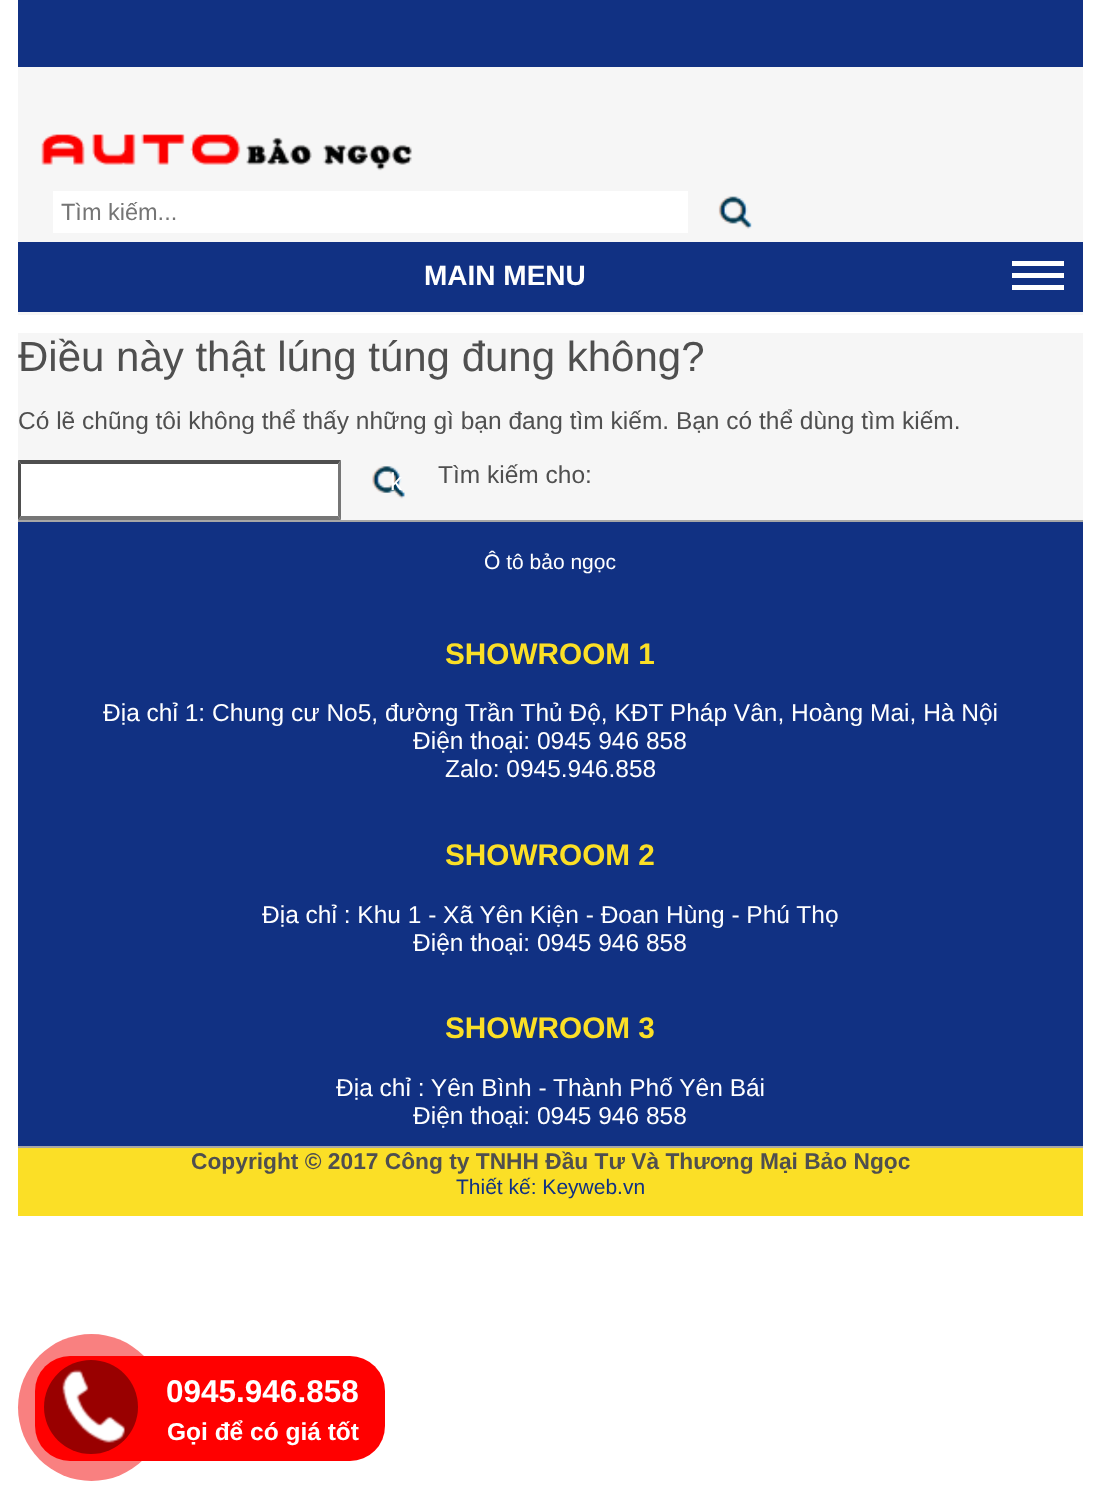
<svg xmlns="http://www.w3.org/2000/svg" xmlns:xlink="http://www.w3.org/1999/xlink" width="1100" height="1508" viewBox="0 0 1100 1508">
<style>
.cls-1{font:23.5px Liberation Sans;fill:#757575}
.cls-2{font:bold 28px Liberation Sans;fill:#ffffff}
.cls-3{font:42px Liberation Sans;fill:#4f4f4f}
.cls-4{font:24.5px Liberation Sans;fill:#4f4f4f}
.cls-5{font:24.5px Liberation Sans;fill:#ffffff}
.cls-6{font:21px Liberation Sans;fill:#ffffff}
.cls-7{font:bold 29.75px Liberation Sans;fill:#fbdf26}
.cls-8{font:bold 22.75px Liberation Sans;fill:#4f4f4f}
.cls-9{font:21px Liberation Sans;fill:#113183}
.cls-10{font:bold 31.5px Liberation Sans;fill:#ffffff}
.cls-11{font:bold 24.5px Liberation Sans;fill:#ffffff}
</style>
<rect width="100%" height="100%" fill="#ffffff"/>
<rect fill="#113183" x="18" y="0" width="1065" height="67"/>
<rect fill="#f6f6f6" x="18" y="67" width="1065" height="248"/>
<image xlink:href="image0.png" x="41" y="134" width="371" height="37"/>
<rect fill="#ffffff" x="53" y="191" width="635" height="42"/>
<image xlink:href="image1.png" x="718" y="196" width="34" height="33"/>
<rect fill="#113183" x="18" y="242" width="1065" height="70"/>
<rect fill="#ffffff" x="1012" y="261" width="52" height="5"/>
<rect fill="#ffffff" x="1012" y="273" width="52" height="5"/>
<rect fill="#ffffff" x="1012" y="285" width="52" height="5"/>
<rect fill="#f6f6f6" x="18" y="333" width="1065" height="187"/>
<rect fill="#ffffff" x="18" y="460" width="323" height="60"/>
<path fill="#4f4f4f" d="M18 460H341L338 464H21Z"/>
<path fill="#767676" d="M341 460V520L338 516V464Z"/>
<path fill="#767676" d="M341 520H18L21 516H338Z"/>
<path fill="#4f4f4f" d="M18 520V460L21 464V516Z"/>
<image xlink:href="image2.png" x="372" y="466" width="33" height="33"/>
<rect fill="#113183" x="18" y="522" width="1065" height="624"/>
<rect fill="#a6a6a6" x="18" y="520" width="1065" height="2"/>
<rect fill="#fbdf26" x="18" y="1148" width="1065" height="68"/>
<rect fill="#a6a6a6" x="18" y="1146" width="1065" height="2"/>
<circle fill="#f98080" cx="91.5" cy="1407.5" r="73.5"/>
<rect fill="#ff0000" x="35" y="1356" width="350" height="105" rx="35"/>
<circle fill="#990000" cx="91" cy="1407" r="47"/>
<image xlink:href="image3.png" x="62" y="1369" width="63" height="74"/>
<text class="cls-1" x="61" y="220">Tìm kiếm...</text>
<text class="cls-2" x="424" y="285">MAIN MENU</text>
<text class="cls-3" x="18" y="371">Điều này thật lúng túng đung không?</text>
<text class="cls-4" x="18" y="429">Có lẽ chũng tôi không thể thấy những gì bạn đang tìm kiếm. Bạn có thể dùng tìm kiếm.</text>
<text class="cls-5" x="390" y="490">k</text>
<text class="cls-4" x="438" y="483">Tìm kiếm cho:</text>
<text class="cls-6" x="484" y="569">Ô tô bảo ngọc</text>
<text class="cls-7" x="445" y="664">SHOWROOM 1</text>
<text class="cls-5" x="103" y="721">Địa chỉ 1: Chung cư No5, đường Trần Thủ Độ, KĐT Pháp Vân, Hoàng Mai, Hà Nội</text>
<text class="cls-5" x="413" y="749">Điện thoại: 0945 946 858</text>
<text class="cls-5" x="445" y="777">Zalo: 0945.946.858</text>
<text class="cls-7" x="445" y="865">SHOWROOM 2</text>
<text class="cls-5" x="262" y="923">Địa chỉ : Khu 1 - Xã Yên Kiện - Đoan Hùng - Phú Thọ</text>
<text class="cls-5" x="413" y="951">Điện thoại: 0945 946 858</text>
<text class="cls-7" x="445" y="1038">SHOWROOM 3</text>
<text class="cls-5" x="336" y="1096">Địa chỉ : Yên Bình - Thành Phố Yên Bái</text>
<text class="cls-5" x="413" y="1124">Điện thoại: 0945 946 858</text>
<text class="cls-8" x="191" y="1169">Copyright © 2017 Công ty TNHH Đầu Tư Và Thương Mại Bảo Ngọc</text>
<text class="cls-9" x="456" y="1194">Thiết kế: Keyweb.vn</text>
<text class="cls-10" x="166" y="1402">0945.946.858</text>
<text class="cls-11" x="167" y="1440">Gọi để có giá tốt</text>
</svg>
